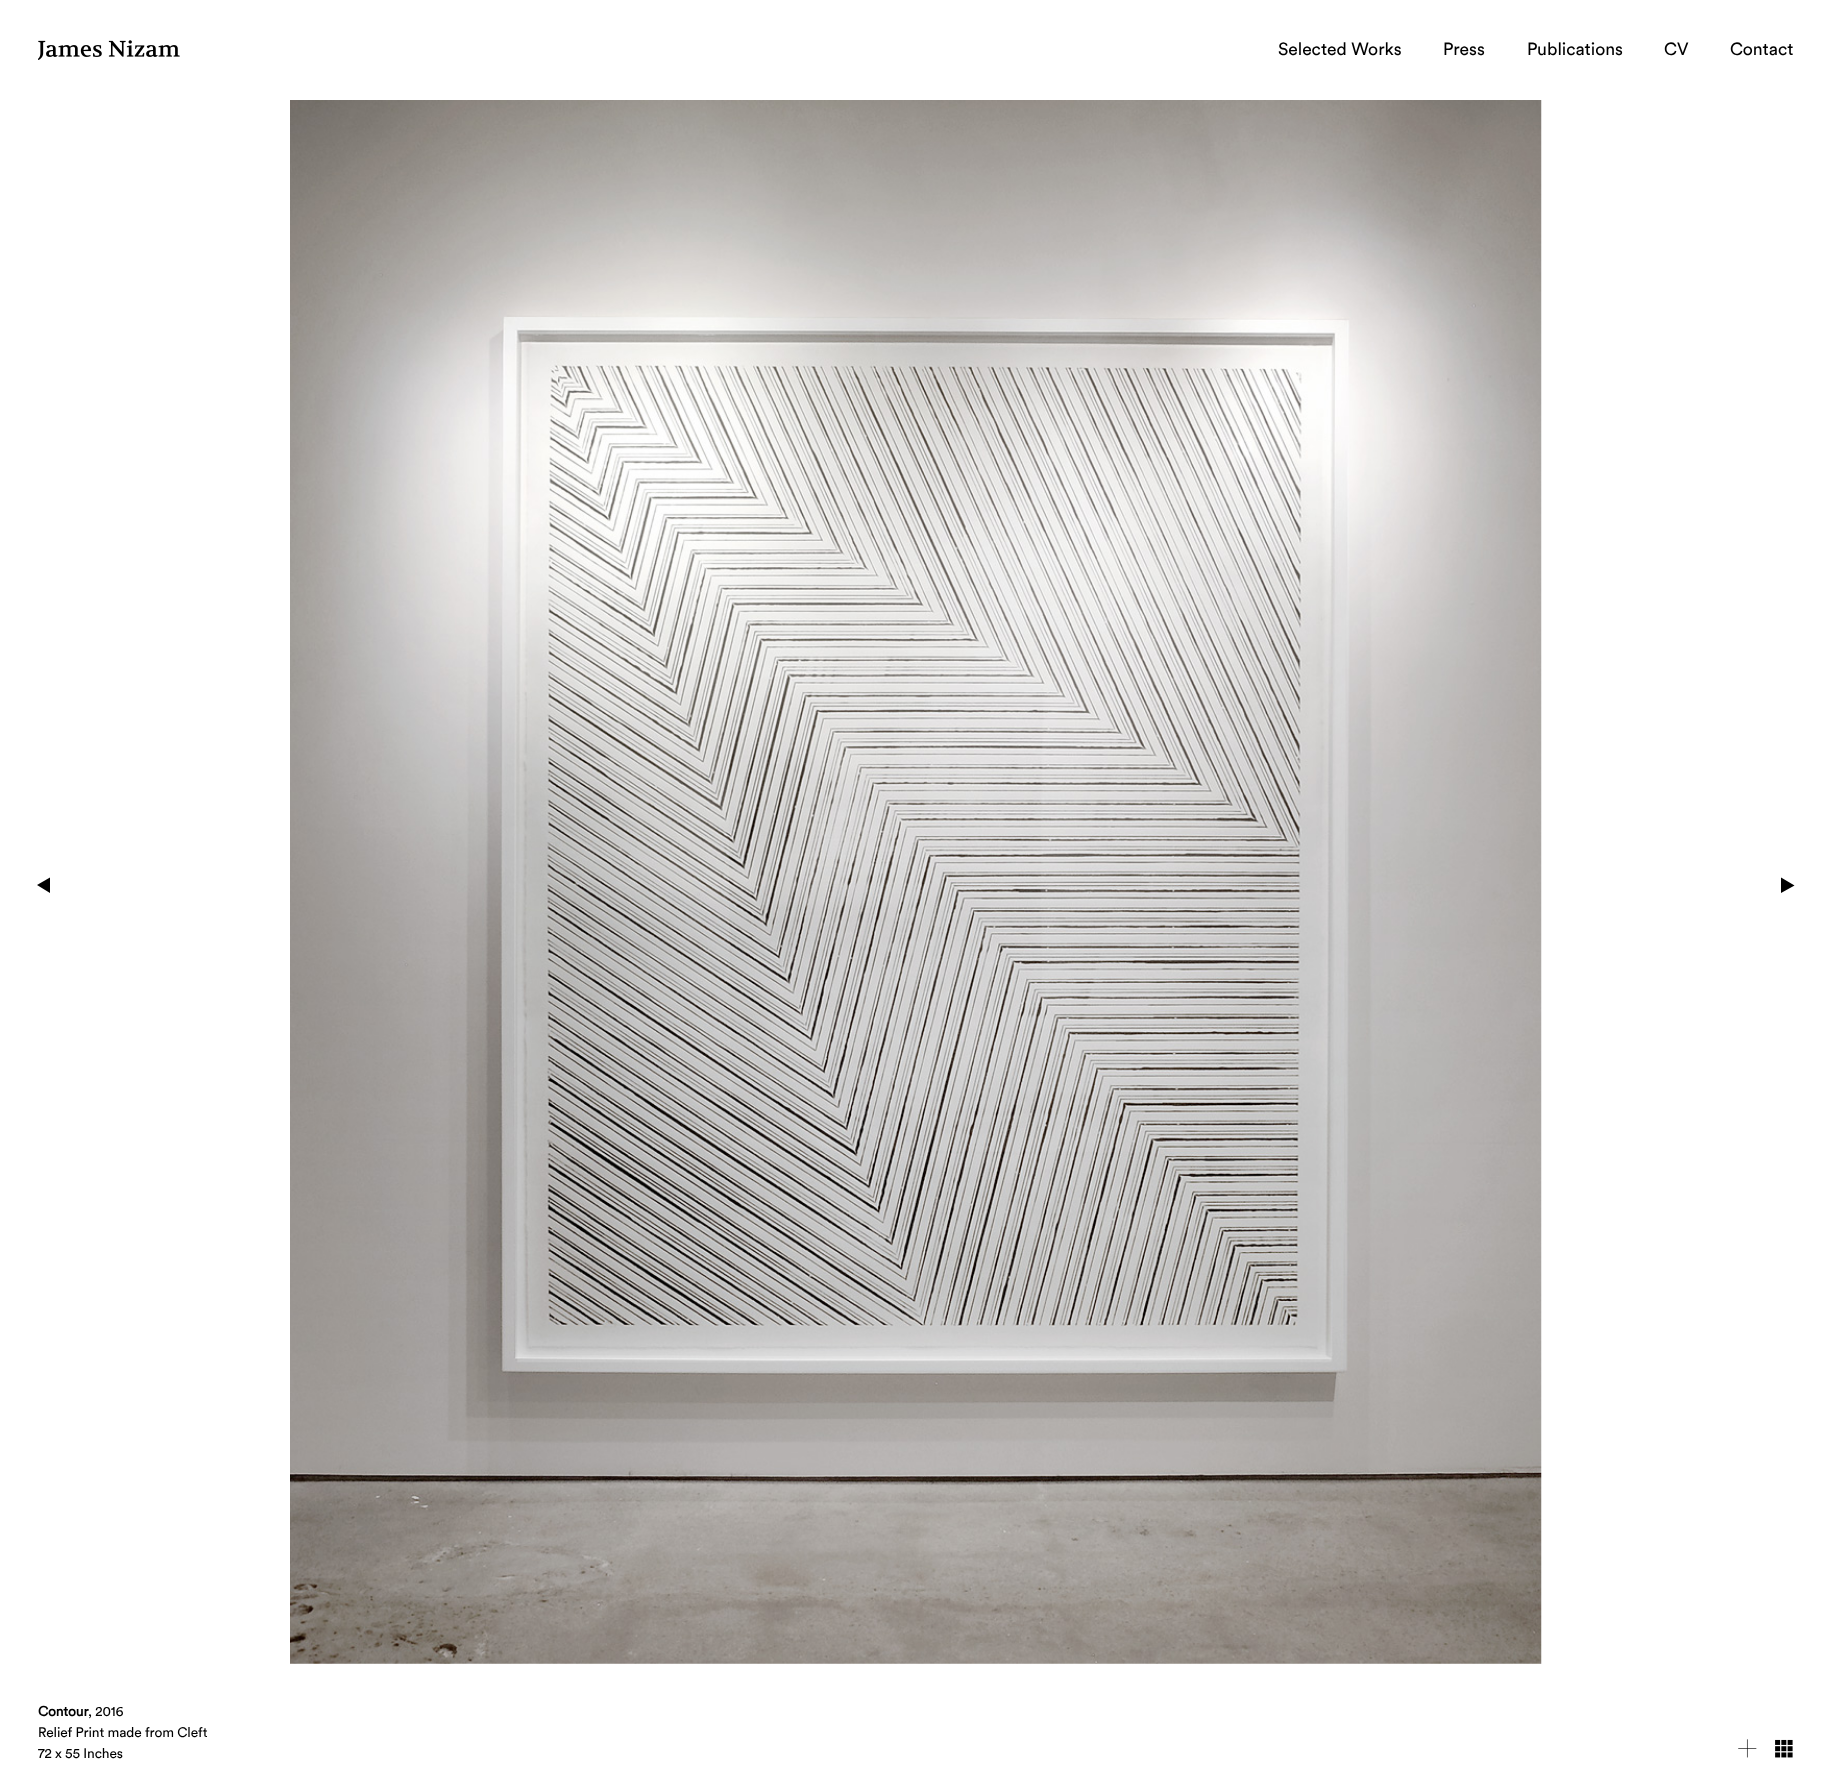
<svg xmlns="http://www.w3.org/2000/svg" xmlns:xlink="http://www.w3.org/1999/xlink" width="1831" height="1785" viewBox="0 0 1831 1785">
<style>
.cls-1{font:17.5px Circular;fill:#000000}
.cls-2{font:bold 13.75px Circular;letter-spacing:-0.1px;fill:#000000}
.cls-3{font:13.75px Circular;letter-spacing:-0.1px;fill:#000000}
</style>
<rect width="100%" height="100%" fill="#ffffff"/>
<image xlink:href="image0.png" x="38" y="40" width="142" height="20"/>
<image xlink:href="image1.png" x="290" y="100" width="1252" height="1564"/>
<path fill="#000000" d="M50 885.5V893L37 885L50 877.5Z"/>
<path fill="#000000" d="M1781 885.5V877.5L1794.5 885.5L1781 893Z"/>
<image xlink:href="image2.png" x="1738" y="1739" width="19" height="19"/>
<image xlink:href="image3.png" x="1775" y="1739" width="18" height="19"/>
<text class="cls-1" x="1278" y="55">Selected Works</text>
<text class="cls-1" x="1443" y="55">Press</text>
<text class="cls-1" x="1527" y="55">Publications</text>
<text class="cls-1" x="1664" y="55">CV</text>
<text class="cls-1" x="1730" y="55">Contact</text>
<text class="cls-2" x="38" y="1716">Contour</text>
<text class="cls-3" x="88" y="1716">, 2016</text>
<text class="cls-3"><tspan x="38" y="1737">Relief Print made from Cleft</tspan><tspan x="38" y="1758">72 x 55 Inches</tspan></text>
</svg>
